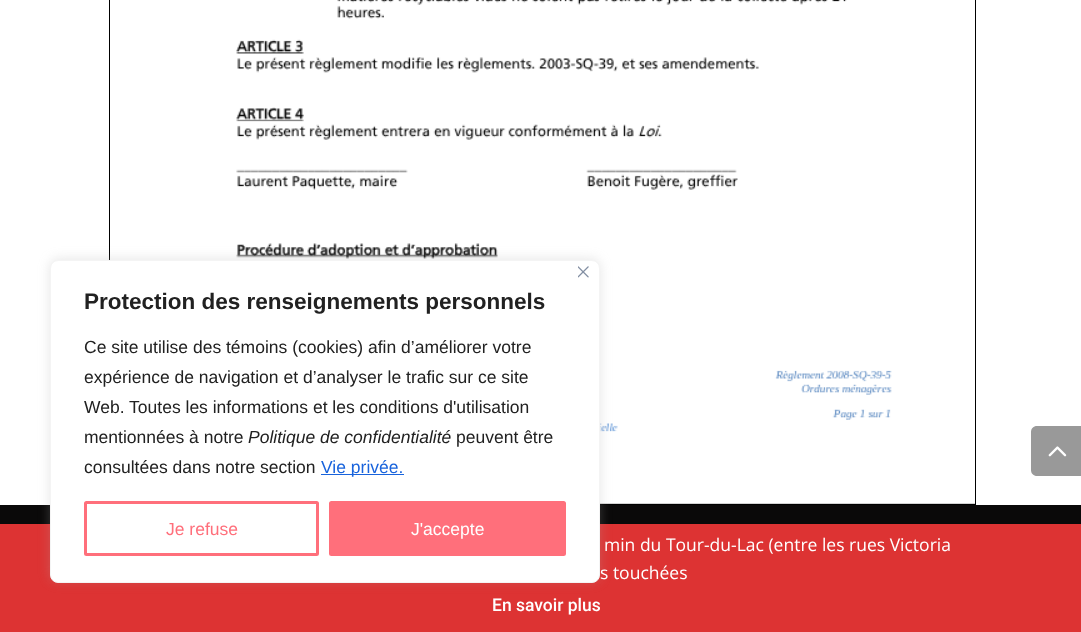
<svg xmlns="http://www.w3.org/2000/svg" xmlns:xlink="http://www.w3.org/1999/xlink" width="1081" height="632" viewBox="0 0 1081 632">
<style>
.cls-1{font:bold 22.5px Liberation Sans;fill:#212121}
.cls-2{font:17.5px Liberation Sans;fill:#212121}
.cls-3{font:italic 17.5px Liberation Sans;fill:#212121}
.cls-4{font:17.5px Liberation Sans;fill:#1863dc}
.cls-5{font:17.5px Liberation Sans;fill:#ff6f7b}
.cls-6{font:17.5px Liberation Sans;fill:#ffffff}
.cls-7{font:17.5px Open Sans;fill:#ffffff}
.cls-8{font:500 17.5px Roboto;fill:#ffffff}
</style>
<rect width="100%" height="100%" fill="#ffffff"/>
<rect fill="#d3d3d3" x="600" y="503" width="375" height="1"/>
<rect fill="none" stroke="#000000" x="109.5" y="-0.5" width="866" height="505"/>
<image xlink:href="image0.png" x="236" y="0" width="656" height="434"/>
<path fill="#999999" d="M1037 426H1081V476H1037C1033.5 476 1031 473.5 1031 470V432C1031 428.5 1033.5 426 1037 426Z"/>
<image xlink:href="image1.png" x="1048" y="446" width="19" height="11"/>
<rect fill="#0a0909" x="0" y="505" width="1081" height="19"/>
<rect fill="#dd3333" x="0" y="524" width="1081" height="108"/>
<rect fill="#acabab" fill-opacity="0.3" filter="blur(6px)" x="50" y="259" width="550" height="322" rx="8"/>
<rect fill="#ffffff" stroke="#f4f4f4" x="50.5" y="260.5" width="549" height="322" rx="7.5"/>
<image xlink:href="image2.png" x="578" y="266" width="11" height="12"/>
<rect fill="#1863dc" x="321" y="474" width="83" height="1"/>
<rect fill="none" stroke="#ff6f7b" stroke-width="3" x="85.5" y="502.5" width="232" height="52" rx="1"/>
<rect fill="#ff6f7b" stroke="#ff6f7b" stroke-width="3" x="330.5" y="502.5" width="234" height="52" rx="1"/>
<text class="cls-1" x="84" y="309">Protection des renseignements personnels</text>
<text class="cls-2"><tspan x="84" y="353">Ce site utilise des témoins (cookies) afin d’améliorer votre</tspan><tspan x="84" y="383">expérience de navigation et d’analyser le trafic sur ce site</tspan><tspan x="84" y="413">Web. Toutes les informations et les conditions d'utilisation</tspan><tspan x="84" y="443">mentionnées à notre</tspan></text>
<text class="cls-3" x="248" y="443">Politique de confidentialité</text>
<text class="cls-2" x="456" y="443">peuvent être</text>
<text class="cls-2" x="84" y="473">consultées dans notre section</text>
<text class="cls-4" x="321" y="473">Vie privée.</text>
<text class="cls-5" x="166" y="535">Je refuse</text>
<text class="cls-6" x="411" y="535">J'accepte</text>
<text class="cls-7" x="604" y="551">min du Tour-du-Lac (entre les rues Victoria</text>
<text class="cls-7" x="600" y="579">s touchées</text>
<text class="cls-8" x="492" y="611">En savoir plus</text>
</svg>
